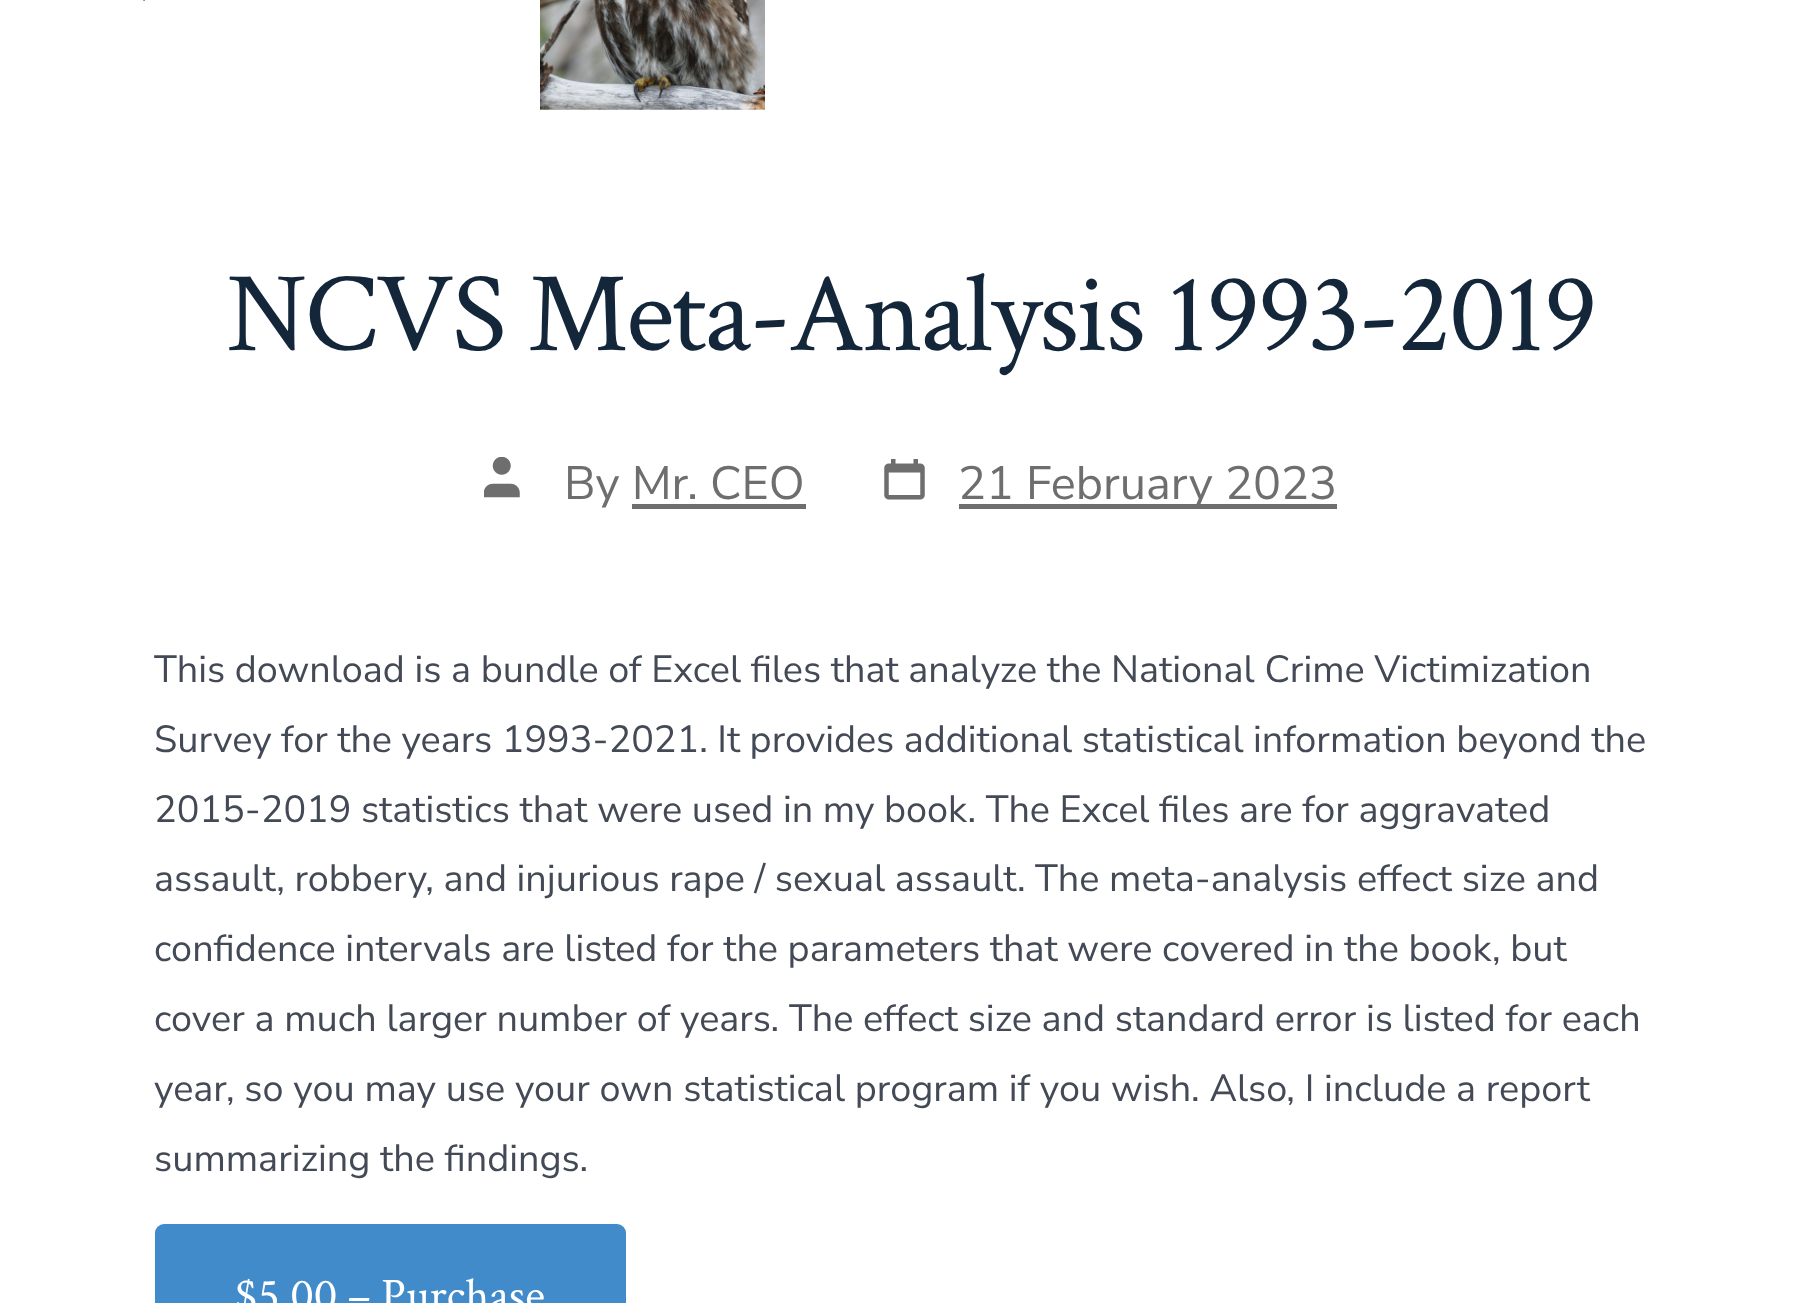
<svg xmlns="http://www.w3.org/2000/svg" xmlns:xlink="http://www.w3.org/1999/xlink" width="1820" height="1303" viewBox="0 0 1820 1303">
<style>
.cls-1{font:113.75px Crimson Text;letter-spacing:-2.25px;fill:#13263a}
.cls-2{font:46.75px Nunito Sans;fill:#6e6e6e}
.cls-3{font:37.8px Nunito Sans;fill:#434a56}
.cls-4{font:46.75px Crimson Text;fill:#ffffff}
</style>
<rect width="100%" height="100%" fill="#ffffff"/>
<image xlink:href="image0.png" x="143" y="0" width="2" height="1"/>
<image xlink:href="image1.png" x="540" y="0" width="225" height="110"/>
<image xlink:href="image2.png" x="484" y="457" width="36" height="41"/>
<rect fill="#6e6e6e" x="632" y="504" width="174" height="5"/>
<image xlink:href="image3.png" x="884" y="459" width="41" height="41"/>
<rect fill="#6e6e6e" x="959" y="504" width="378" height="5"/>
<rect fill="#428bca" x="155" y="1224" width="471" height="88" rx="9"/>
<text class="cls-1" x="227" y="350">NCVS Meta-Analysis 1993-2019</text>
<text class="cls-2" x="564" y="499">By Mr. CEO</text>
<text class="cls-2" x="958" y="499">21 February 2023</text>
<text class="cls-3"><tspan x="154" y="682" word-spacing="-0.1">This download is a bundle of Excel files that analyze the National Crime Victimization</tspan><tspan x="154" y="752" word-spacing="-0.25">Survey for the years 1993-2021. It provides additional statistical information beyond the</tspan><tspan x="154" y="822" word-spacing="-0.1">2015-2019 statistics that were used in my book. The Excel files are for aggravated</tspan><tspan x="154" y="891" word-spacing="-0.1">assault, robbery, and injurious rape / sexual assault.</tspan></text>
<text class="cls-3" x="1035" y="891">The meta-analysis effect size and</text>
<text class="cls-3"><tspan x="154" y="961" word-spacing="-0.1">confidence intervals are listed for the parameters that were covered in the book, but</tspan><tspan x="154" y="1031">cover a much larger number of years. The effect size and standard error is listed for each</tspan><tspan x="154" y="1101">year, so you may use your own statistical program if you wish. Also, I include a report</tspan><tspan x="154" y="1171">summarizing the findings.</tspan></text>
<text class="cls-4" x="235" y="1310">$5.00 – Purchase</text>
</svg>
